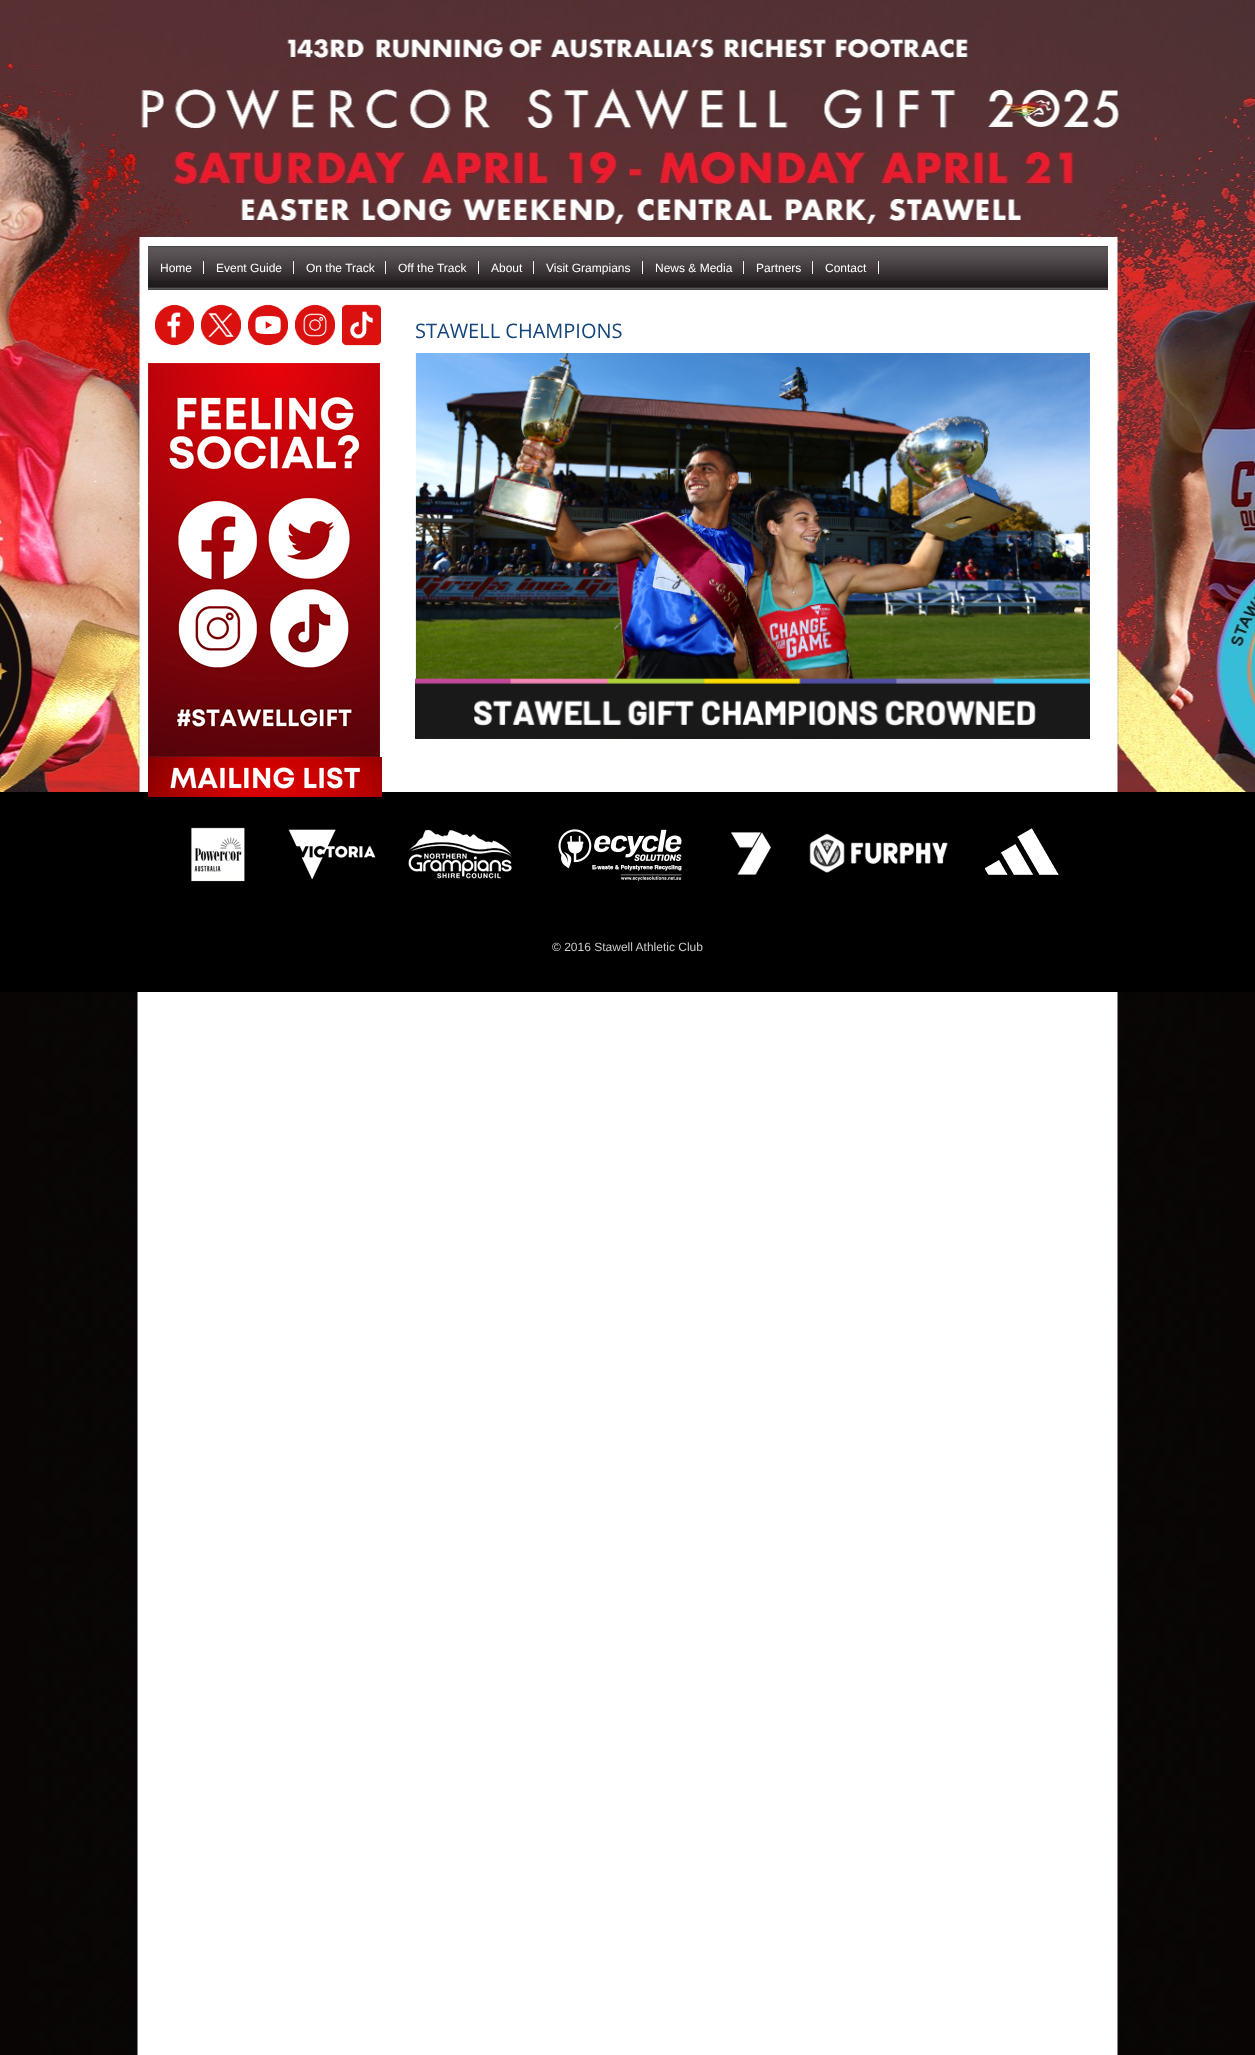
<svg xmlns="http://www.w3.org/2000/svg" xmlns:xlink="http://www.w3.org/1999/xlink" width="1255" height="2055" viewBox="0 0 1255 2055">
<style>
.cls-1{font:12px Liberation Sans;fill:#ffffff}
.cls-2{font:20px Open Sans;fill:#13447a}
.cls-3{font:12px Liberation Sans;fill:#cccccc}
</style>
<rect width="100%" height="100%" fill="#ffffff"/>
<image xlink:href="image0.png" x="0" y="992" width="1255" height="1063"/>
<image xlink:href="image1.png" x="0" y="0" width="1255" height="792"/>
<image xlink:href="image2.png" x="148" y="246" width="960" height="44"/>
<image xlink:href="image3.png" x="198" y="255" width="6" height="21"/>
<image xlink:href="image4.png" x="288" y="255" width="6" height="20"/>
<image xlink:href="image4.png" x="380" y="255" width="6" height="20"/>
<image xlink:href="image3.png" x="473" y="255" width="6" height="21"/>
<image xlink:href="image4.png" x="528" y="255" width="6" height="20"/>
<image xlink:href="image3.png" x="637" y="255" width="6" height="21"/>
<image xlink:href="image4.png" x="738" y="255" width="6" height="20"/>
<image xlink:href="image4.png" x="807" y="255" width="6" height="20"/>
<image xlink:href="image3.png" x="873" y="255" width="6" height="21"/>
<image xlink:href="image5.png" x="155" y="304" width="39" height="42"/>
<image xlink:href="image6.png" x="201" y="304" width="40" height="42"/>
<image xlink:href="image7.png" x="248" y="304" width="40" height="42"/>
<image xlink:href="image8.png" x="295" y="304" width="40" height="42"/>
<image xlink:href="image9.png" x="342" y="304" width="39" height="42"/>
<image xlink:href="image10.png" x="148" y="363" width="232" height="394"/>
<rect fill="#000000" x="0" y="792" width="1255" height="200"/>
<image xlink:href="image11.png" x="148" y="757" width="234" height="40"/>
<image xlink:href="image12.png" x="415" y="353" width="675" height="386"/>
<image xlink:href="image13.png" x="191" y="827" width="868" height="55"/>
<text class="cls-1" x="160" y="272">Home</text>
<text class="cls-1" x="216" y="272">Event Guide</text>
<text class="cls-1" x="306" y="272">On the Track</text>
<text class="cls-1" x="398" y="272">Off the Track</text>
<text class="cls-1" x="491" y="272">About</text>
<text class="cls-1" x="546" y="272">Visit Grampians</text>
<text class="cls-1" x="655" y="272">News &amp; Media</text>
<text class="cls-1" x="756" y="272">Partners</text>
<text class="cls-1" x="825" y="272">Contact</text>
<text class="cls-2" x="415" y="338">STAWELL CHAMPIONS</text>
<text class="cls-3" x="552" y="951">© 2016 Stawell Athletic Club</text>
</svg>
